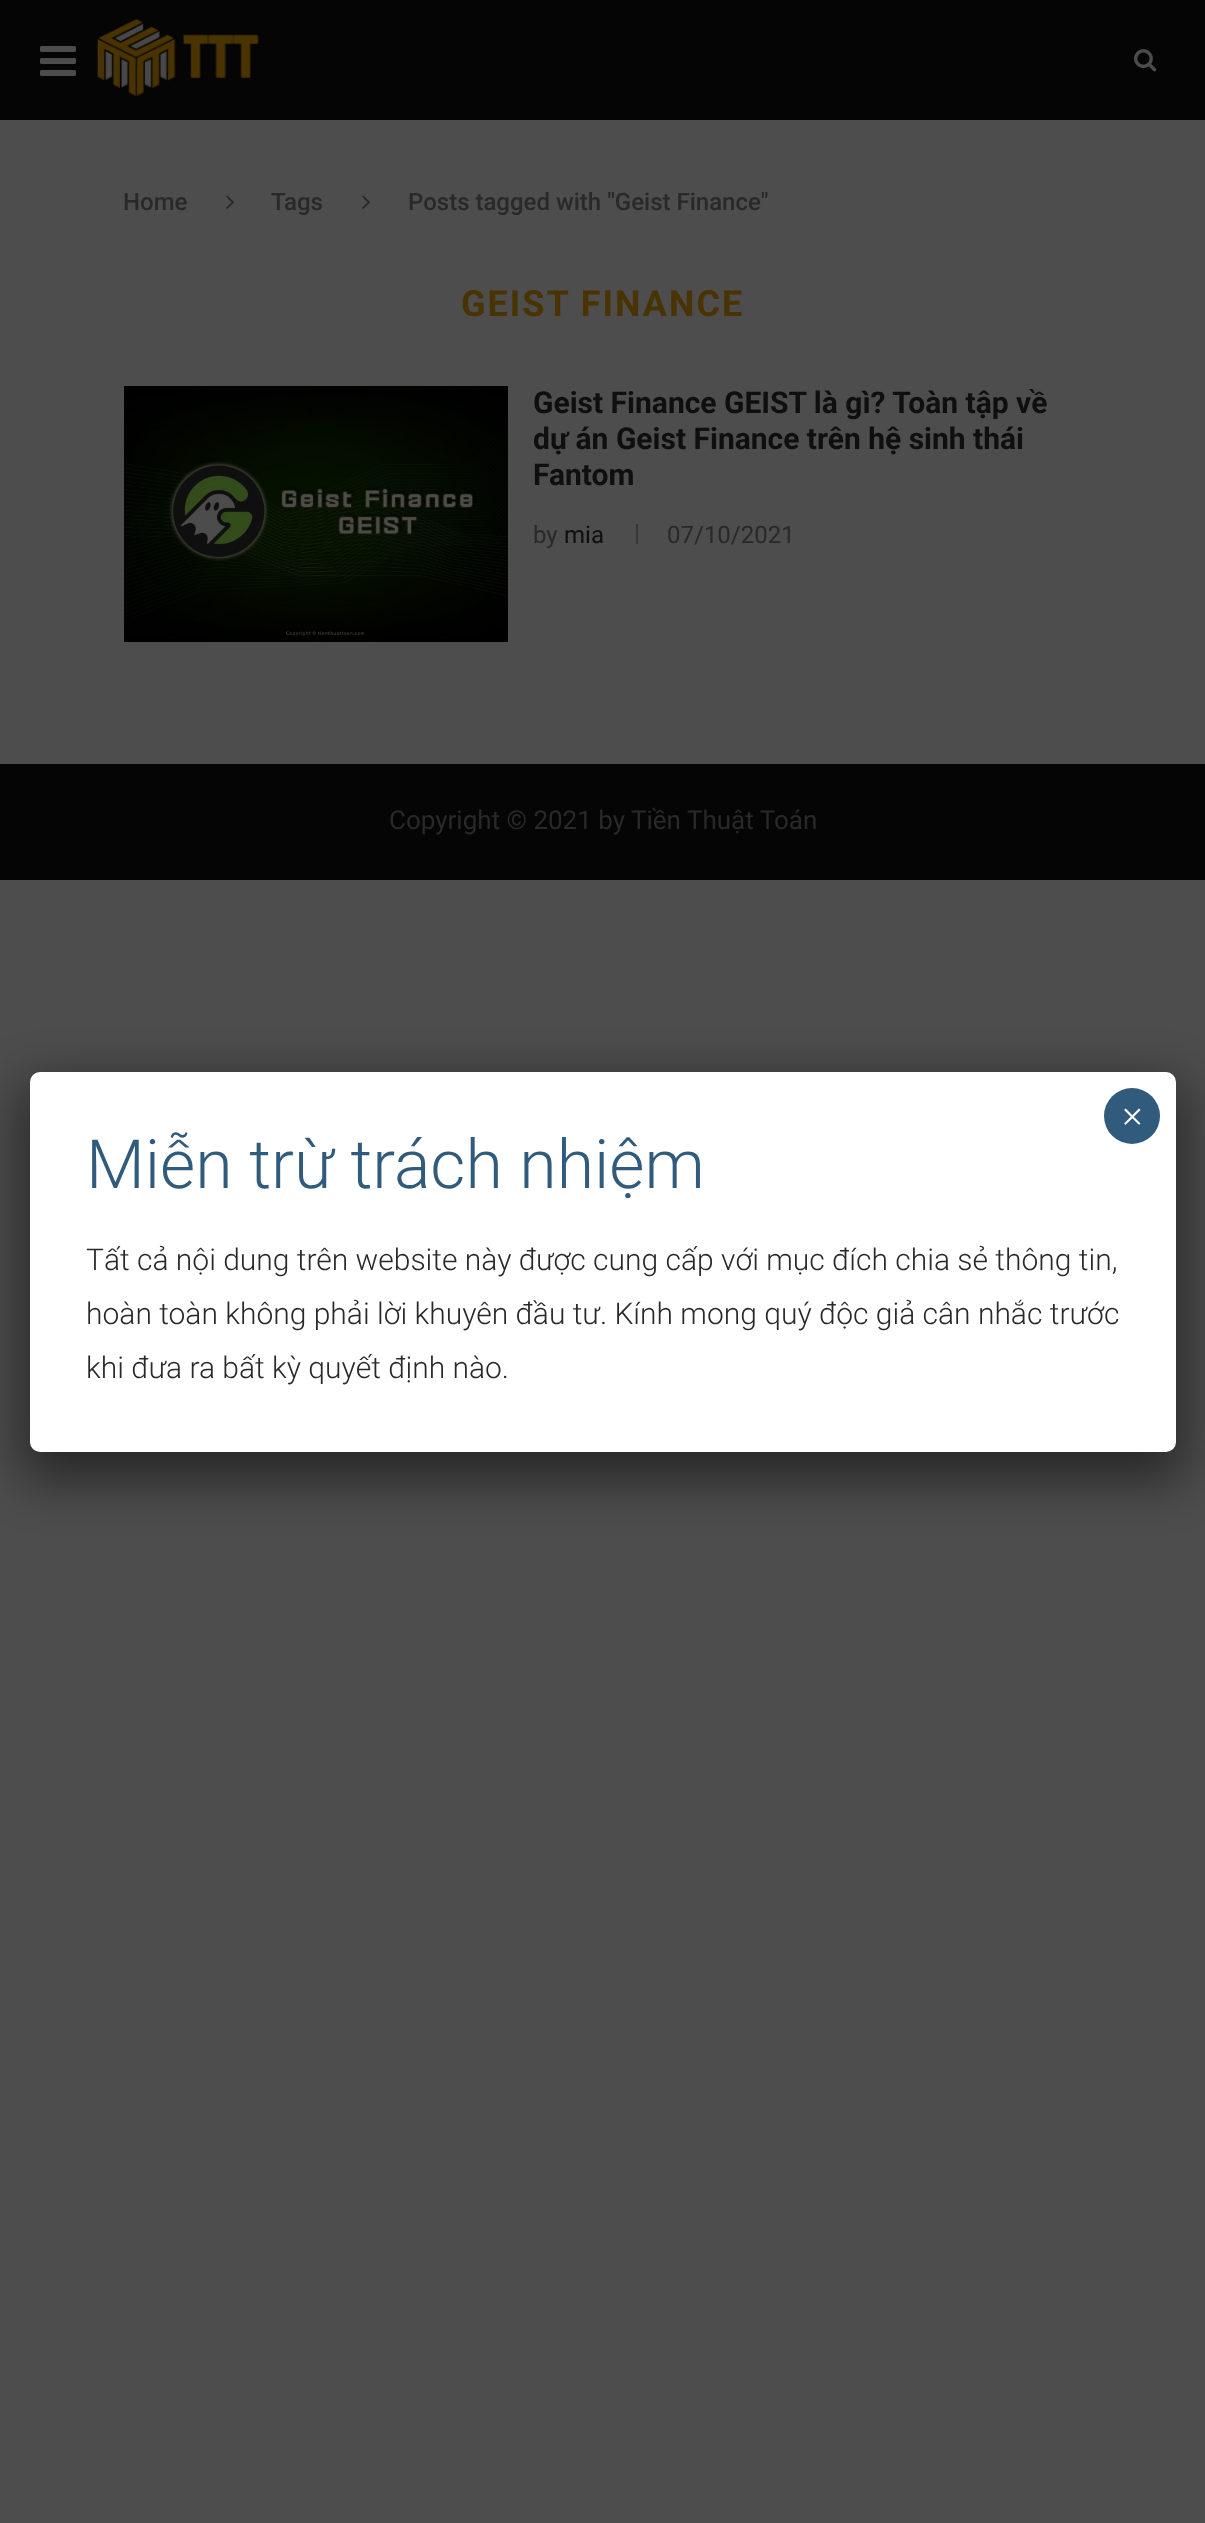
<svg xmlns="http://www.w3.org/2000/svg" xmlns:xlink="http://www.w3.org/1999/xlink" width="1205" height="2523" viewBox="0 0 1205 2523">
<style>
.cls-1{font:500 24px Roboto;fill:#292929}
.cls-2{font:bold 36px Roboto;letter-spacing:2px;fill:#493300}
.cls-3{font:bold 30px Roboto;fill:#0f0f0f}
.cls-4{font:24px Roboto;fill:#292929}
.cls-5{font:24px Roboto;fill:#0f0f0f}
.cls-6{font:26px Roboto;fill:#292929}
.cls-7{font:40px Liberation Serif;fill:#ffffff}
.cls-8{font:300 68px Roboto;fill:#315b7c}
.cls-9{font:300 30px Roboto;fill:#292929}
</style>
<rect width="100%" height="100%" fill="#4d4d4d"/>
<rect fill="#050505" x="0" y="0" width="1205" height="120"/>
<image xlink:href="image0.png" x="40" y="46" width="36" height="30"/>
<image xlink:href="image1.png" x="97" y="18" width="162" height="78"/>
<image xlink:href="image2.png" x="1134" y="49" width="23" height="23"/>
<image xlink:href="image3.png" x="226" y="195" width="8" height="14"/>
<image xlink:href="image3.png" x="362" y="195" width="8" height="14"/>
<image xlink:href="image4.png" x="124" y="386" width="384" height="256"/>
<rect fill="#373737" x="636" y="524" width="2" height="20"/>
<rect fill="#050505" x="0" y="764" width="1205" height="116"/>
<rect fill="#020202" fill-opacity="0.5" filter="blur(25px)" x="22" y="1084" width="1162" height="396" rx="18"/>
<rect fill="#ffffff" x="30" y="1072" width="1146" height="380" rx="10"/>
<circle fill="#315b7c" cx="1132" cy="1116" r="28"/>
<text class="cls-1" x="123" y="210">Home</text>
<text class="cls-1" x="271" y="210">Tags</text>
<text class="cls-1" x="408" y="210">Posts tagged with "Geist Finance"</text>
<text class="cls-2" x="461" y="316">GEIST FINANCE</text>
<text class="cls-3"><tspan x="533" y="413">Geist Finance GEIST là gì? Toàn tập về</tspan><tspan x="533" y="449">dự án Geist Finance trên hệ sinh thái</tspan><tspan x="533" y="485">Fantom</tspan></text>
<text class="cls-4" x="533" y="543">by</text>
<text class="cls-5" x="564" y="543">mia</text>
<text class="cls-4" x="667" y="543">07/10/2021</text>
<text class="cls-6" x="389" y="829">Copyright © 2021 by Tiền Thuật Toán</text>
<text class="cls-7" x="1121" y="1130">×</text>
<text class="cls-8" x="86" y="1188">Miễn trừ trách nhiệm</text>
<text class="cls-9"><tspan x="86" y="1270">Tất cả nội dung trên website này được cung cấp với mục đích chia sẻ thông tin,</tspan><tspan x="86" y="1324">hoàn toàn không phải lời khuyên đầu tư. Kính mong quý độc giả cân nhắc trước</tspan><tspan x="86" y="1378">khi đưa ra bất kỳ quyết định nào.</tspan></text>
</svg>
